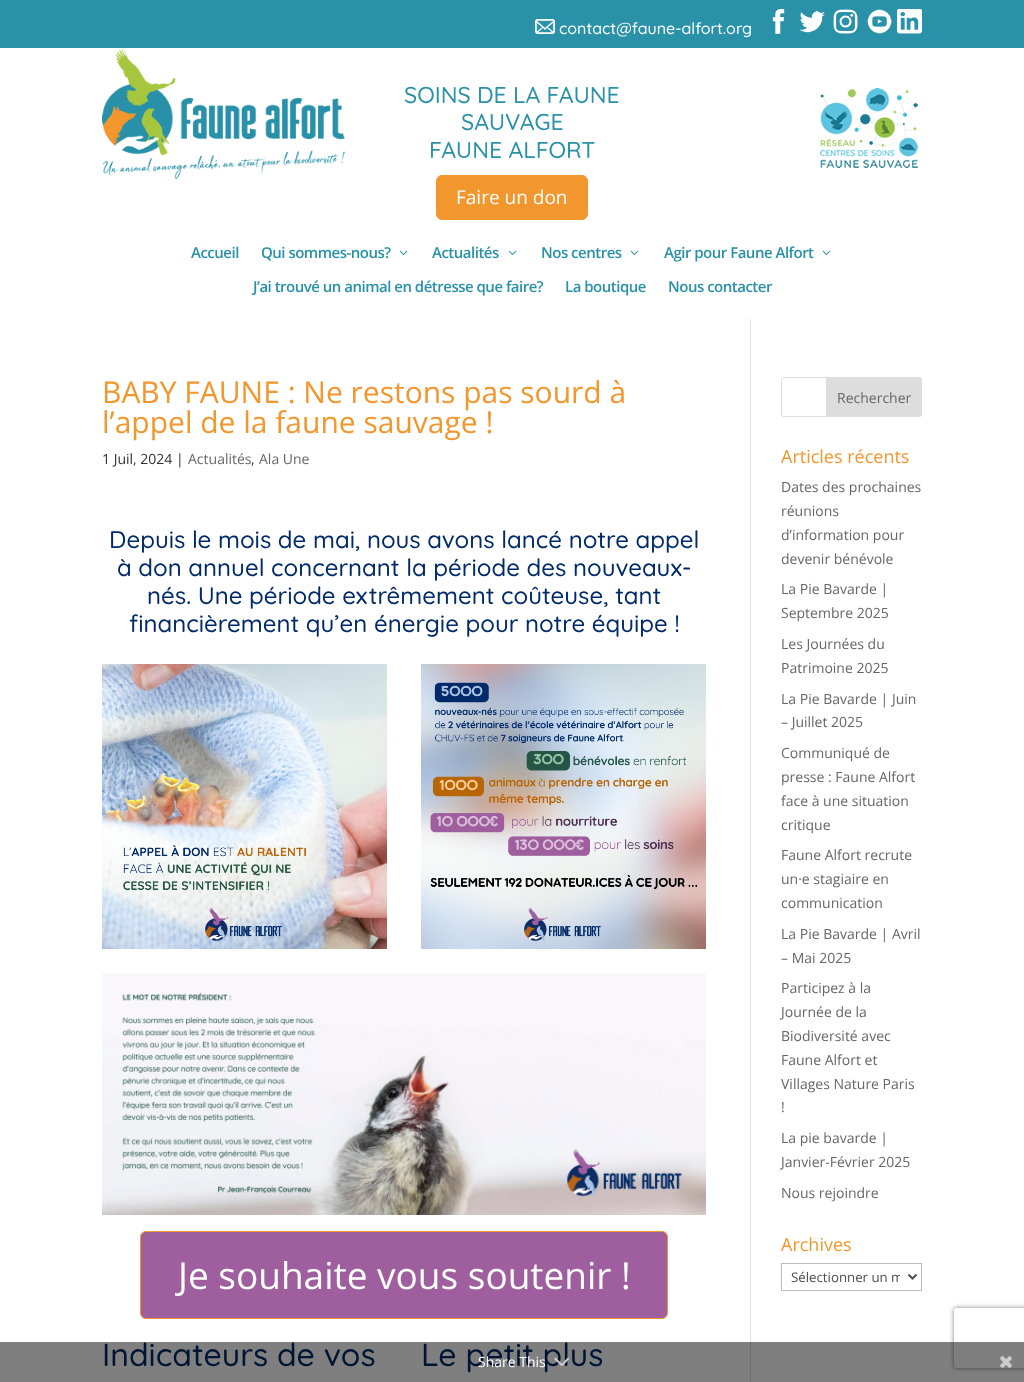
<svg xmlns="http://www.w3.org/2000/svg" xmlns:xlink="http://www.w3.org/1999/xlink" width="1024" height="1382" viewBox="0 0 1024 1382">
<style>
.cls-1{font:500 16px Quicksand;fill:#ffffff}
.cls-2{font:500 23px Quicksand;fill:#2991a8}
.cls-3{font:19px Open Sans;fill:#ffffff}
.cls-4{font:600 15px Open Sans;letter-spacing:-0.5px;fill:#2991a8}
.cls-5{font:30px Open Sans;fill:#f2962e}
.cls-6{font:14px Open Sans;fill:#303030}
.cls-7{font:14px Open Sans;fill:#666666}
.cls-8{font:500 24px Quicksand;fill:#002a69}
.cls-9{font:37px Open Sans;fill:#ffffff}
.cls-10{font:500 32px Quicksand;fill:#002a69}
.cls-11{font:18px Open Sans;fill:#f2962e}
.cls-12{font:13.25px Open Sans;fill:#4e4e4e}
.cls-13{font:14px Open Sans;fill:#ffffff}
</style>
<defs>
<clipPath id="clip1"><path d="M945 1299H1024V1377H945ZM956 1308H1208C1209 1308 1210 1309 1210 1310V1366C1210 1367 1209 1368 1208 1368H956C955 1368 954 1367 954 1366V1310C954 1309 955 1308 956 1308Z" clip-rule="evenodd"/></clipPath>
<clipPath id="clip2"><rect x="791" y="1267" width="109" height="20"/></clipPath>
</defs>
<rect width="100%" height="100%" fill="#ffffff"/>
<rect fill="#2991a8" x="0" y="0" width="1024" height="48"/>
<image xlink:href="image0.png" x="535" y="19" width="20" height="15"/>
<image xlink:href="image1.png" x="772" y="9" width="13" height="25"/>
<image xlink:href="image2.png" x="800" y="11" width="25" height="22"/>
<image xlink:href="image3.png" x="833" y="9" width="25" height="25"/>
<image xlink:href="image4.png" x="867" y="9" width="25" height="25"/>
<image xlink:href="image5.png" x="897" y="9" width="25" height="25"/>
<image xlink:href="image6.png" x="102" y="48" width="243" height="131"/>
<rect fill="#f2962e" stroke="#f2962e" x="436.5" y="175.5" width="151" height="44" rx="5.5"/>
<image xlink:href="image7.png" x="820" y="88" width="98" height="80"/>
<image xlink:href="image8.png" x="399" y="250" width="9" height="5"/>
<image xlink:href="image8.png" x="508" y="250" width="9" height="5"/>
<image xlink:href="image8.png" x="630" y="250" width="9" height="5"/>
<image xlink:href="image8.png" x="822" y="250" width="9" height="5"/>
<rect fill="#e2e2e2" x="750" y="319" width="1" height="1063"/>
<image xlink:href="image9.png" x="102" y="664" width="285" height="285"/>
<image xlink:href="image10.png" x="421" y="664" width="285" height="285"/>
<image xlink:href="image11.png" x="102" y="973" width="604" height="242"/>
<rect fill="#9f5f9f" stroke="#f2962e" x="140.5" y="1231.5" width="527" height="87" rx="5.5"/>
<rect fill="none" stroke="#dddddd" x="781.5" y="377.5" width="140" height="39" rx="2.5"/>
<path fill="#dddddd" stroke="#dddddd" d="M826.5 377.5H919C920.5 377.5 921.5 378.5 921.5 380V414C921.5 415.5 920.5 416.5 919 416.5H826.5Z"/>
<rect fill="none" stroke="#bbbbbb" x="781.5" y="1263.5" width="140" height="27"/>
<path fill="none" stroke="#4e4e4e" stroke-width="2" d="M908.5 1274.5L912.5 1278.5L916.5 1274.5"/>
<g clip-path="url(#clip1)">
<rect fill="#808080" filter="blur(2.5px)" x="954" y="1308" width="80" height="60" rx="2"/>
</g>
<text class="cls-1" x="559" y="34">contact@faune-alfort.org</text>
<text class="cls-2" x="404" y="103">SOINS DE LA FAUNE</text>
<text class="cls-2" x="461" y="130">SAUVAGE</text>
<text class="cls-2" x="429" y="158">FAUNE ALFORT</text>
<text class="cls-3" x="456" y="204">Faire un don</text>
<text class="cls-4" x="191" y="258">Accueil</text>
<text class="cls-4" x="261" y="258">Qui sommes-nous?</text>
<text class="cls-4" x="432" y="258">Actualités</text>
<text class="cls-4" x="541" y="258">Nos centres</text>
<text class="cls-4" x="664" y="258">Agir pour Faune Alfort</text>
<text class="cls-4" x="253" y="292">J’ai trouvé un animal en détresse que faire?</text>
<text class="cls-4" x="565" y="292">La boutique</text>
<text class="cls-4" x="668" y="292">Nous contacter</text>
<text class="cls-5"><tspan x="102" y="403">BABY FAUNE : Ne restons pas sourd à</tspan><tspan x="102" y="433">l’appel de la faune sauvage !</tspan></text>
<text class="cls-6" x="102" y="464">1 Juil, 2024 |</text>
<text class="cls-7" x="188" y="464">Actualités</text>
<text class="cls-6" x="251" y="464">,</text>
<text class="cls-7" x="259" y="464">Ala Une</text>
<text class="cls-8" x="109" y="548">Depuis le mois de mai, nous avons lancé notre appel</text>
<text class="cls-8" x="117" y="576">à don annuel concernant la période des nouveaux-</text>
<text class="cls-8" x="147" y="604">nés. Une période extrêmement coûteuse, tant</text>
<text class="cls-8" x="129" y="632">financièrement qu’en énergie pour notre équipe !</text>
<text class="cls-9" x="178" y="1289">Je souhaite vous soutenir !</text>
<text class="cls-10" x="102" y="1366">Indicateurs de vos</text>
<text class="cls-10" x="421" y="1366">Le petit plus</text>
<text class="cls-7" x="837" y="403">Rechercher</text>
<text class="cls-11" x="781" y="463">Articles récents</text>
<text class="cls-7"><tspan x="781" y="492">Dates des prochaines</tspan><tspan x="781" y="516">réunions</tspan><tspan x="781" y="540">d’information pour</tspan><tspan x="781" y="564">devenir bénévole</tspan></text>
<text class="cls-7"><tspan x="781" y="594">La Pie Bavarde |</tspan><tspan x="781" y="618">Septembre 2025</tspan></text>
<text class="cls-7"><tspan x="781" y="649">Les Journées du</tspan><tspan x="781" y="673">Patrimoine 2025</tspan></text>
<text class="cls-7"><tspan x="781" y="704">La Pie Bavarde | Juin</tspan><tspan x="781" y="727">– Juillet 2025</tspan></text>
<text class="cls-7"><tspan x="781" y="758">Communiqué de</tspan><tspan x="781" y="782">presse : Faune Alfort</tspan><tspan x="781" y="806">face à une situation</tspan><tspan x="781" y="830">critique</tspan></text>
<text class="cls-7"><tspan x="781" y="860">Faune Alfort recrute</tspan><tspan x="781" y="884">un·e stagiaire en</tspan><tspan x="781" y="908">communication</tspan></text>
<text class="cls-7"><tspan x="781" y="939">La Pie Bavarde | Avril</tspan><tspan x="781" y="963">– Mai 2025</tspan></text>
<text class="cls-7"><tspan x="781" y="993">Participez à la</tspan><tspan x="781" y="1017">Journée de la</tspan><tspan x="781" y="1041">Biodiversité avec</tspan><tspan x="781" y="1065">Faune Alfort et</tspan><tspan x="781" y="1089">Villages Nature Paris</tspan><tspan x="781" y="1112">!</tspan></text>
<text class="cls-7"><tspan x="781" y="1143">La pie bavarde |</tspan><tspan x="781" y="1167">Janvier-Février 2025</tspan></text>
<text class="cls-7" x="781" y="1198">Nous rejoindre</text>
<text class="cls-11" x="781" y="1251">Archives</text>
<g clip-path="url(#clip2)">
<text class="cls-12" x="791" y="1282">Sélectionner un m</text>
</g>
<rect fill="#000000" fill-opacity="0.5" x="0" y="1342" width="1024" height="40"/>
<text class="cls-13" x="478" y="1367">Share This</text>
<image xlink:href="image12.png" x="554" y="1357" width="16" height="9"/>
<image xlink:href="image13.png" x="1000" y="1356" width="12" height="12"/>
</svg>
